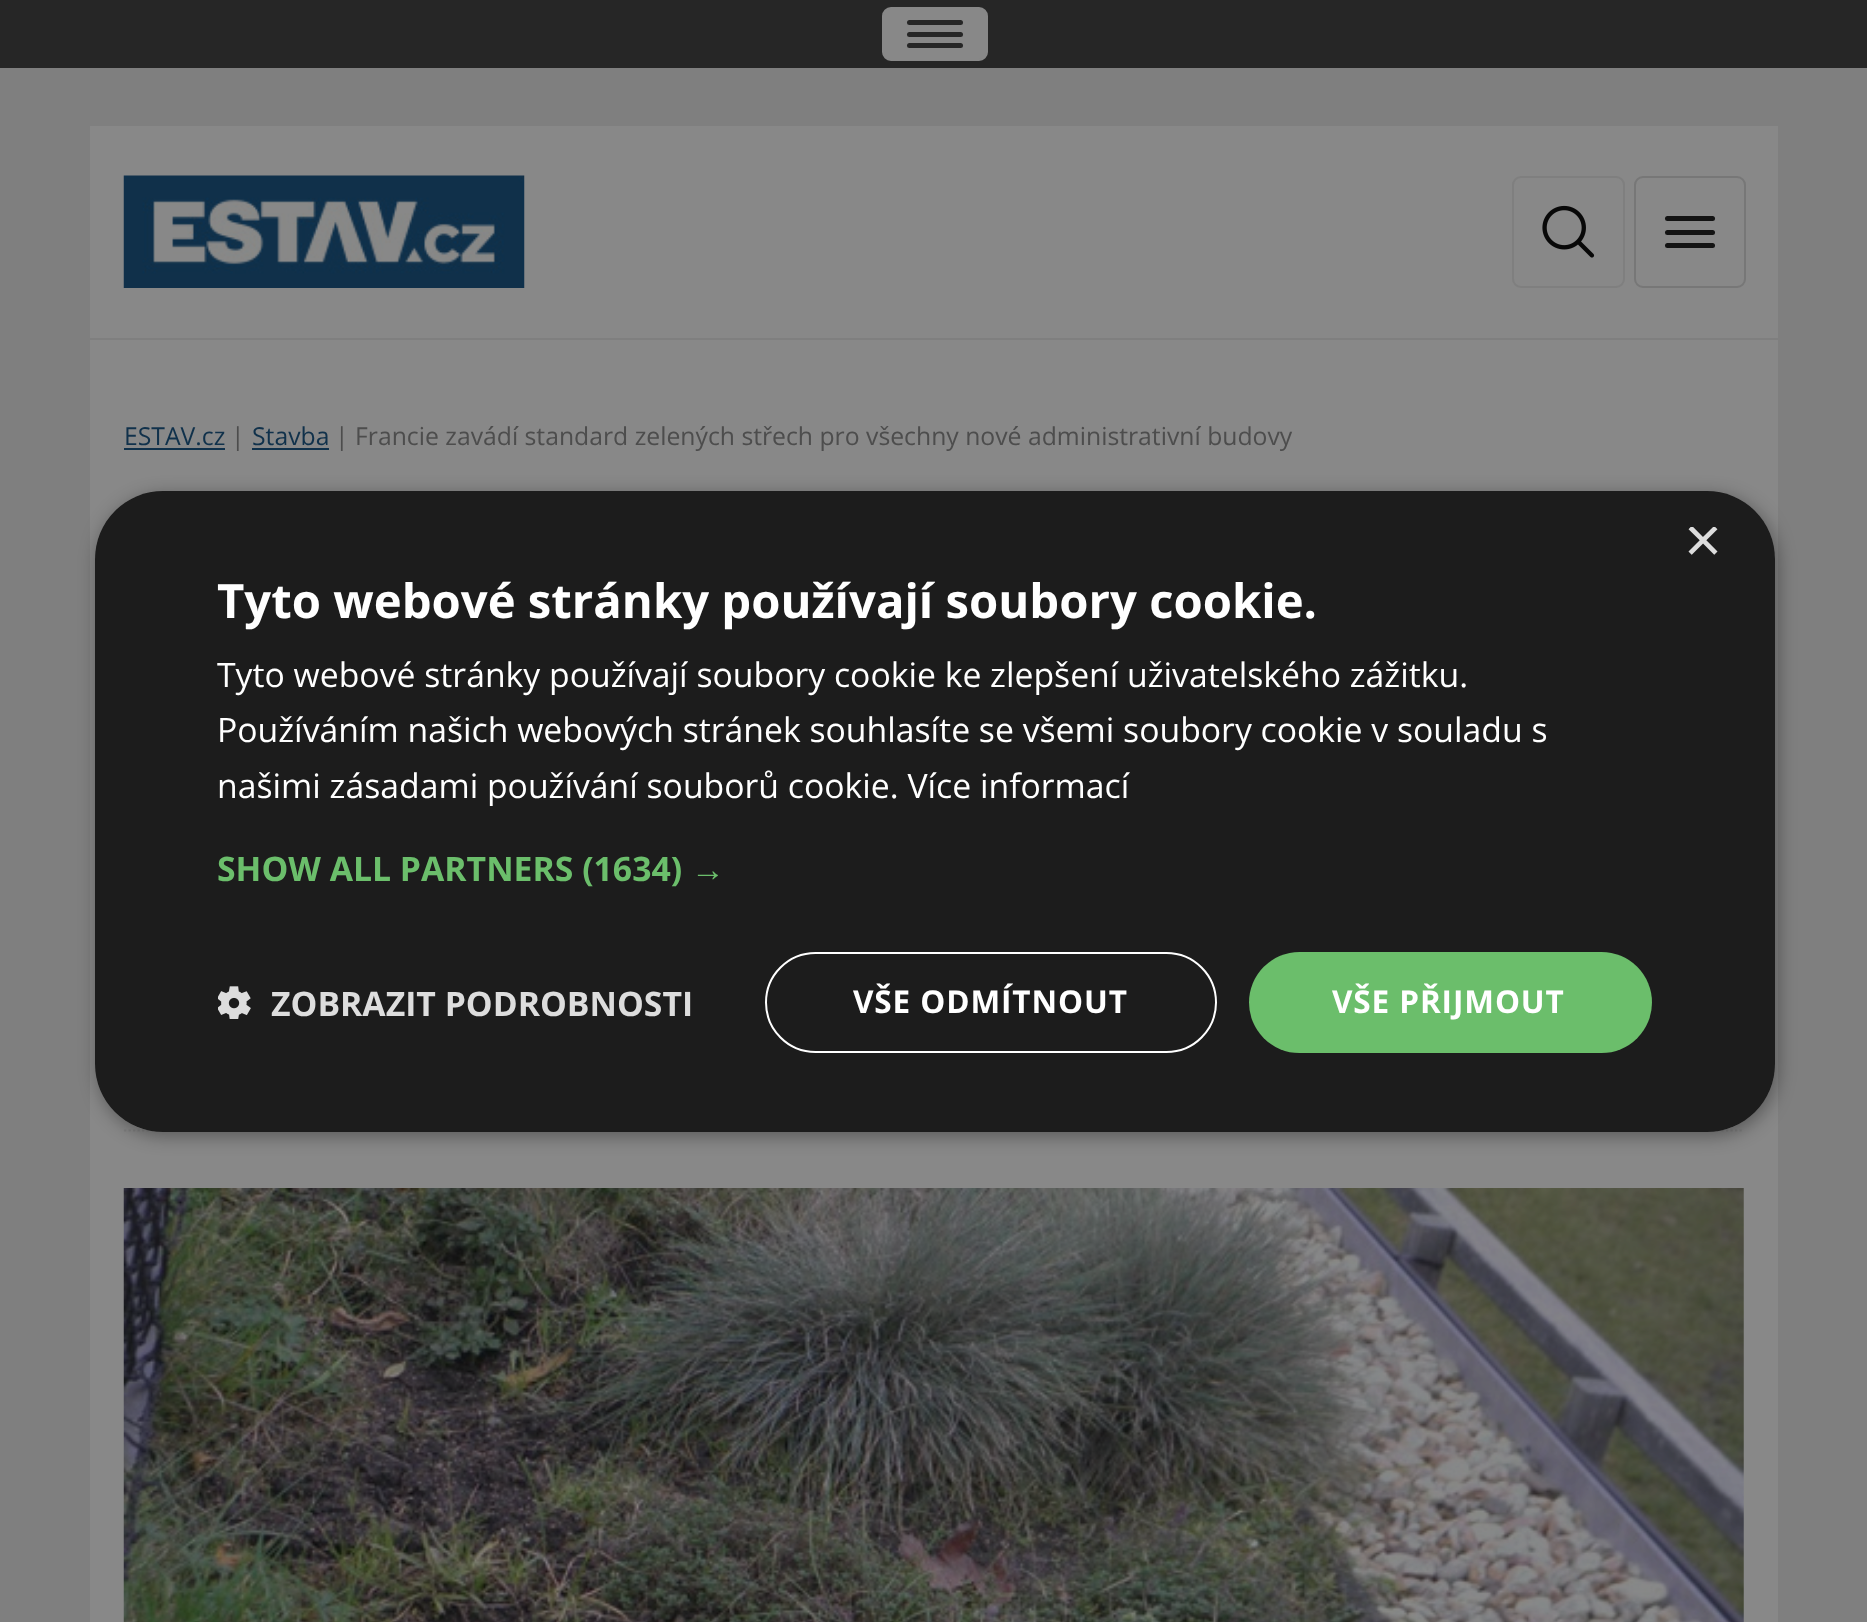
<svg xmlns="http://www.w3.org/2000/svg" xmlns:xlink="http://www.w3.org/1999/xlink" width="1867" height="1622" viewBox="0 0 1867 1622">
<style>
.cls-1{font:24.75px Open Sans;fill:#10314b}
.cls-2{font:24.75px Open Sans;fill:#4d4d4d}
.cls-3{font:65px Liberation Sans;fill:#dddddd}
.cls-4{font:bold 47.25px Open Sans;fill:#ffffff}
.cls-5{font:33.75px Open Sans;fill:#ffffff}
.cls-6{font:bold 33.75px Open Sans;fill:#6bbe6b}
.cls-7{font:bold 33.75px Liberation Sans;fill:#6bbe6b}
.cls-8{font:bold 33.75px Open Sans;fill:#dddddd}
.cls-9{font:bold 31.5px Open Sans;letter-spacing:0.9px;fill:#ffffff}
</style>
<defs>
<clipPath id="clip1"><path d="M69 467H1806V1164H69ZM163 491H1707C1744.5 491 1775 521.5 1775 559V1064C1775 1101.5 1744.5 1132 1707 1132H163C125.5 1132 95 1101.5 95 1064V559C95 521.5 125.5 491 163 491Z" clip-rule="evenodd"/></clipPath>
<clipPath id="clip2"><rect x="1685" y="527" width="34" height="33"/></clipPath>
</defs>
<rect width="100%" height="100%" fill="#7f7f7f"/>
<rect fill="#262626" x="0" y="0" width="1867" height="68"/>
<rect fill="#888888" stroke="#888888" stroke-width="2" x="883" y="8" width="104" height="52" rx="8"/>
<rect fill="#262626" x="907" y="20" width="56" height="5" rx="2.5"/>
<rect fill="#262626" x="907" y="32" width="56" height="5" rx="2.5"/>
<rect fill="#262626" x="907" y="43" width="56" height="5" rx="2.5"/>
<rect fill="#888888" x="90" y="126" width="1688" height="1496"/>
<image xlink:href="image0.png" x="123" y="175" width="402" height="113"/>
<rect fill="none" stroke="#7f7f7f" stroke-width="2" x="1513" y="177" width="111" height="110" rx="8"/>
<image xlink:href="image1.png" x="1542" y="205" width="53" height="53"/>
<rect fill="#7f7f7f" x="90" y="338" width="1688" height="2"/>
<rect fill="none" stroke="#777777" stroke-width="2" x="1635" y="177" width="110" height="110" rx="8"/>
<rect fill="#131313" x="1665" y="216" width="50" height="5" rx="2.5"/>
<rect fill="#131313" x="1665" y="230" width="50" height="5" rx="2.5"/>
<rect fill="#131313" x="1665" y="243" width="50" height="5" rx="2.5"/>
<rect fill="#10314b" x="124" y="448" width="101" height="2"/>
<rect fill="#10314b" x="252" y="448" width="77" height="2"/>
<path fill="none" stroke="#7e7e7e" stroke-width="2.2" stroke-dasharray="2.25 2.25" d="M124 1130.5H1744"/>
<image xlink:href="image2.png" x="123" y="1188" width="1621" height="434"/>
<g clip-path="url(#clip1)">
<rect fill="#000000" fill-opacity="0.35" filter="blur(9px)" x="97" y="495" width="1681" height="641" rx="68"/>
</g>
<rect fill="#1c1c1c" x="95" y="491" width="1680" height="641" rx="68"/>
<image xlink:href="image3.png" x="218" y="986" width="33" height="33"/>
<rect fill="none" stroke="#ffffff" stroke-width="2" x="766" y="953" width="450" height="99" rx="49.5"/>
<rect fill="#6bbe6b" x="1249" y="952" width="403" height="101" rx="50.5"/>
<text class="cls-1" x="124" y="445">ESTAV.cz</text>
<text class="cls-2" x="231" y="445">|</text>
<text class="cls-1" x="252" y="445">Stavba</text>
<text class="cls-2" x="335" y="445">| Francie zavádí standard zelených střech pro všechny nové administrativní budovy</text>
<g clip-path="url(#clip2)">
<text class="cls-3" x="1684" y="562">×</text>
</g>
<text class="cls-4" x="217" y="618">Tyto webové stránky používají soubory cookie.</text>
<text class="cls-5"><tspan x="217" y="687">Tyto webové stránky používají soubory cookie ke zlepšení uživatelského zážitku.</tspan><tspan x="217" y="742">Používáním našich webových stránek souhlasíte se všemi soubory cookie v souladu s</tspan><tspan x="217" y="798">našimi zásadami používání souborů cookie. Více informací</tspan></text>
<text class="cls-6" x="217" y="881">SHOW ALL PARTNERS (1634)</text>
<text class="cls-7" x="691" y="881">→</text>
<text class="cls-8" x="271" y="1016">ZOBRAZIT PODROBNOSTI</text>
<text class="cls-9" x="853" y="1013">VŠE ODMÍTNOUT</text>
<text class="cls-9" x="1332" y="1013">VŠE PŘIJMOUT</text>
</svg>
